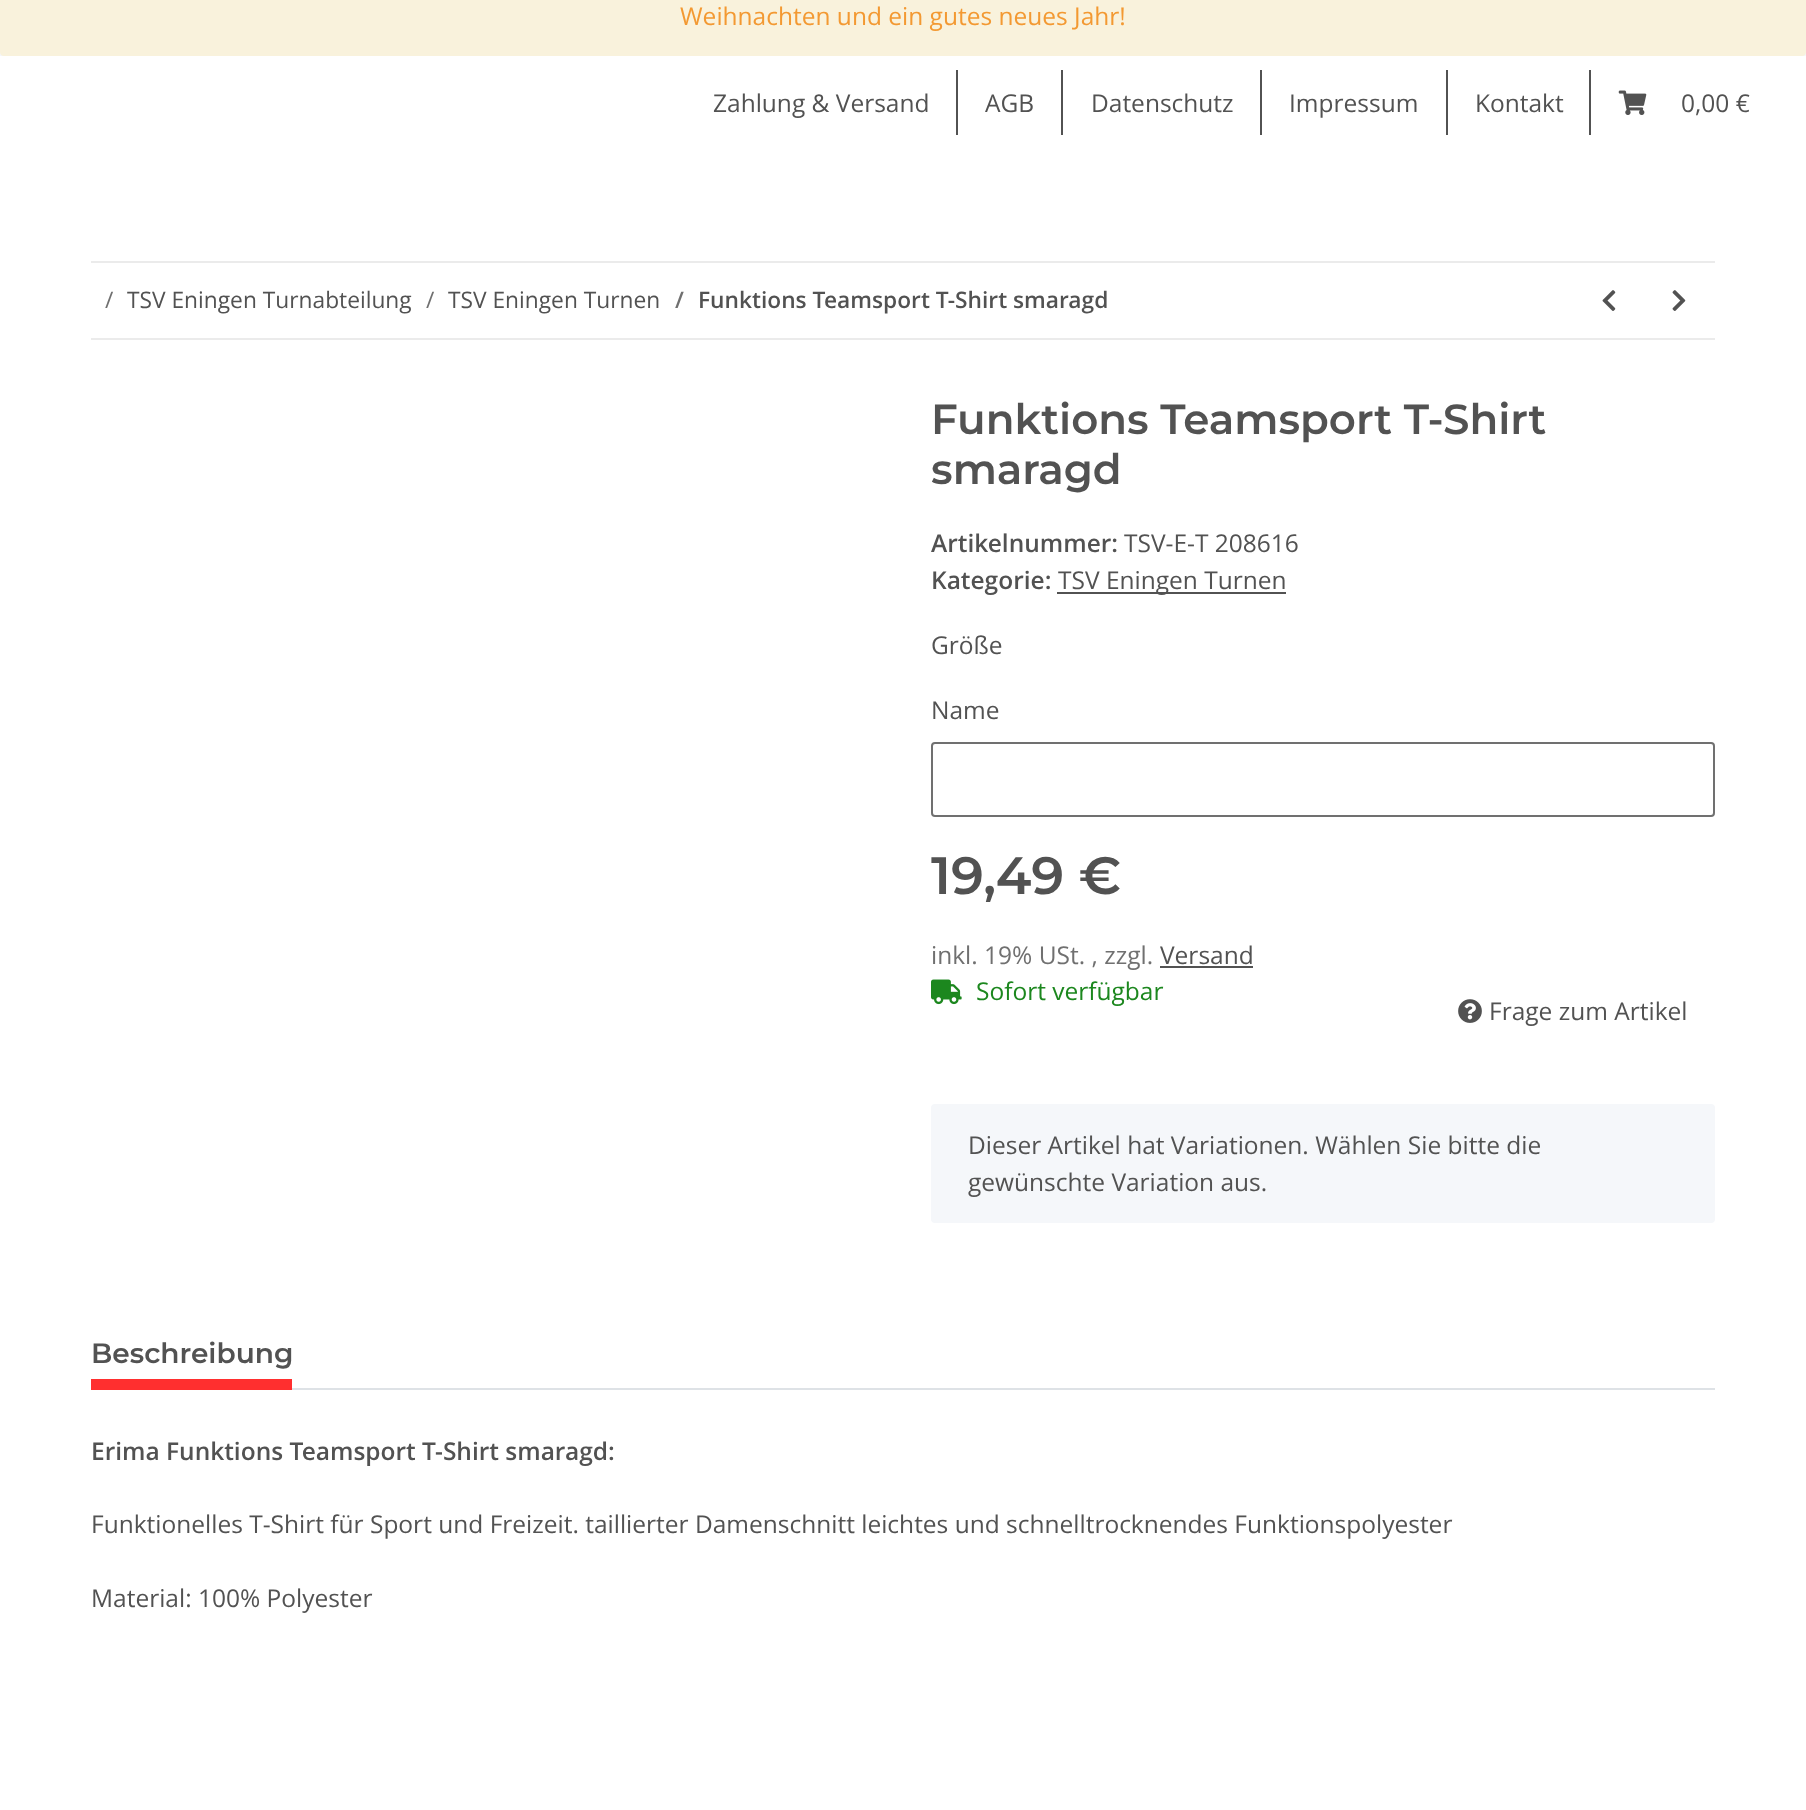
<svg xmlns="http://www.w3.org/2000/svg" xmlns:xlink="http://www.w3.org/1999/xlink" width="1806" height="1810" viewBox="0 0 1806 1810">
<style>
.cls-1{font:24.5px Open Sans;fill:#f39932}
.cls-2{font:24.5px Open Sans;fill:#525252}
.cls-3{font:22.75px Open Sans;fill:#707070}
.cls-4{font:22.75px Open Sans;fill:#525252}
.cls-5{font:600 22.75px Open Sans;fill:#707070}
.cls-6{font:600 22.75px Open Sans;fill:#525252}
.cls-7{font:600 42px Montserrat;fill:#525252}
.cls-8{font:600 24.5px Open Sans;fill:#525252}
.cls-9{font:600 52.5px Montserrat;fill:#525252}
.cls-10{font:24.5px Open Sans;fill:#707070}
.cls-11{font:24.5px Open Sans;fill:#1c871e}
.cls-12{font:600 28px Montserrat;fill:#525252}
</style>
<rect width="100%" height="100%" fill="#f5f7fa"/>
<rect fill="#f9f2dc" stroke="#f9f2dc" stroke-width="2" x="1" y="-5" width="1804" height="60" rx="3"/>
<rect fill="#ffffff" x="0" y="56" width="1806" height="1754"/>
<rect fill="#525252" x="956" y="70" width="2" height="65"/>
<rect fill="#525252" x="1061" y="70" width="2" height="65"/>
<rect fill="#525252" x="1260" y="70" width="2" height="65"/>
<rect fill="#525252" x="1446" y="70" width="2" height="65"/>
<rect fill="#525252" x="1589" y="70" width="2" height="65"/>
<image xlink:href="image0.png" x="1618" y="90" width="29" height="25"/>
<rect fill="#ebebeb" x="91" y="261" width="1624" height="2"/>
<rect fill="#ebebeb" x="91" y="338" width="1624" height="2"/>
<image xlink:href="image1.png" x="1602" y="290" width="14" height="21"/>
<image xlink:href="image2.png" x="1672" y="290" width="14" height="21"/>
<rect fill="#525252" x="1057" y="592" width="229" height="2"/>
<rect fill="none" stroke="#707070" stroke-width="2" x="932" y="743" width="782" height="73" rx="3"/>
<rect fill="#525252" x="1160" y="966" width="93" height="2"/>
<image xlink:href="image3.png" x="931" y="979" width="31" height="26"/>
<image xlink:href="image4.png" x="1458" y="999" width="24" height="24"/>
<rect fill="#f5f7fa" x="931" y="1104" width="784" height="119" rx="4"/>
<rect fill="#dee2e6" x="292" y="1388" width="1423" height="2"/>
<rect fill="#ff2f2f" x="91" y="1379" width="201" height="11"/>
<text class="cls-1" x="680" y="25">Weihnachten und ein gutes neues Jahr!</text>
<text class="cls-2" x="713" y="112">Zahlung &amp; Versand</text>
<text class="cls-2" x="985" y="112">AGB</text>
<text class="cls-2" x="1091" y="112">Datenschutz</text>
<text class="cls-2" x="1289" y="112">Impressum</text>
<text class="cls-2" x="1475" y="112">Kontakt</text>
<text class="cls-2" x="1681" y="112">0,00 €</text>
<text class="cls-3" x="105" y="308">/</text>
<text class="cls-4" x="127" y="308">TSV Eningen Turnabteilung</text>
<text class="cls-3" x="426" y="308">/</text>
<text class="cls-4" x="448" y="308">TSV Eningen Turnen</text>
<text class="cls-5" x="675" y="308">/</text>
<text class="cls-6" x="698" y="308">Funktions Teamsport T-Shirt smaragd</text>
<text class="cls-7"><tspan x="931" y="434">Funktions Teamsport T-Shirt</tspan><tspan x="931" y="484">smaragd</tspan></text>
<text class="cls-8" x="931" y="552">Artikelnummer:</text>
<text class="cls-2" x="1124" y="552">TSV-E-T 208616</text>
<text class="cls-8" x="931" y="589">Kategorie:</text>
<text class="cls-2" x="1058" y="589">TSV Eningen Turnen</text>
<text class="cls-2" x="931" y="654">Größe</text>
<text class="cls-2" x="931" y="719">Name</text>
<text class="cls-9" x="931" y="894">19,49 €</text>
<text class="cls-10" x="931" y="964">inkl. 19% USt. , zzgl.</text>
<text class="cls-2" x="1160" y="964">Versand</text>
<text class="cls-11" x="976" y="1000">Sofort verfügbar</text>
<text class="cls-2" x="1489" y="1020">Frage zum Artikel</text>
<text class="cls-2"><tspan x="968" y="1154">Dieser Artikel hat Variationen. Wählen Sie bitte die</tspan><tspan x="968" y="1191">gewünschte Variation aus.</tspan></text>
<text class="cls-12" x="91" y="1363">Beschreibung</text>
<text class="cls-8" x="91" y="1460">Erima Funktions Teamsport T-Shirt smaragd:</text>
<text class="cls-2" x="91" y="1533">Funktionelles T-Shirt für Sport und Freizeit. taillierter Damenschnitt leichtes und schnelltrocknendes Funktionspolyester</text>
<text class="cls-2" x="91" y="1607">Material: 100% Polyester</text>
</svg>
